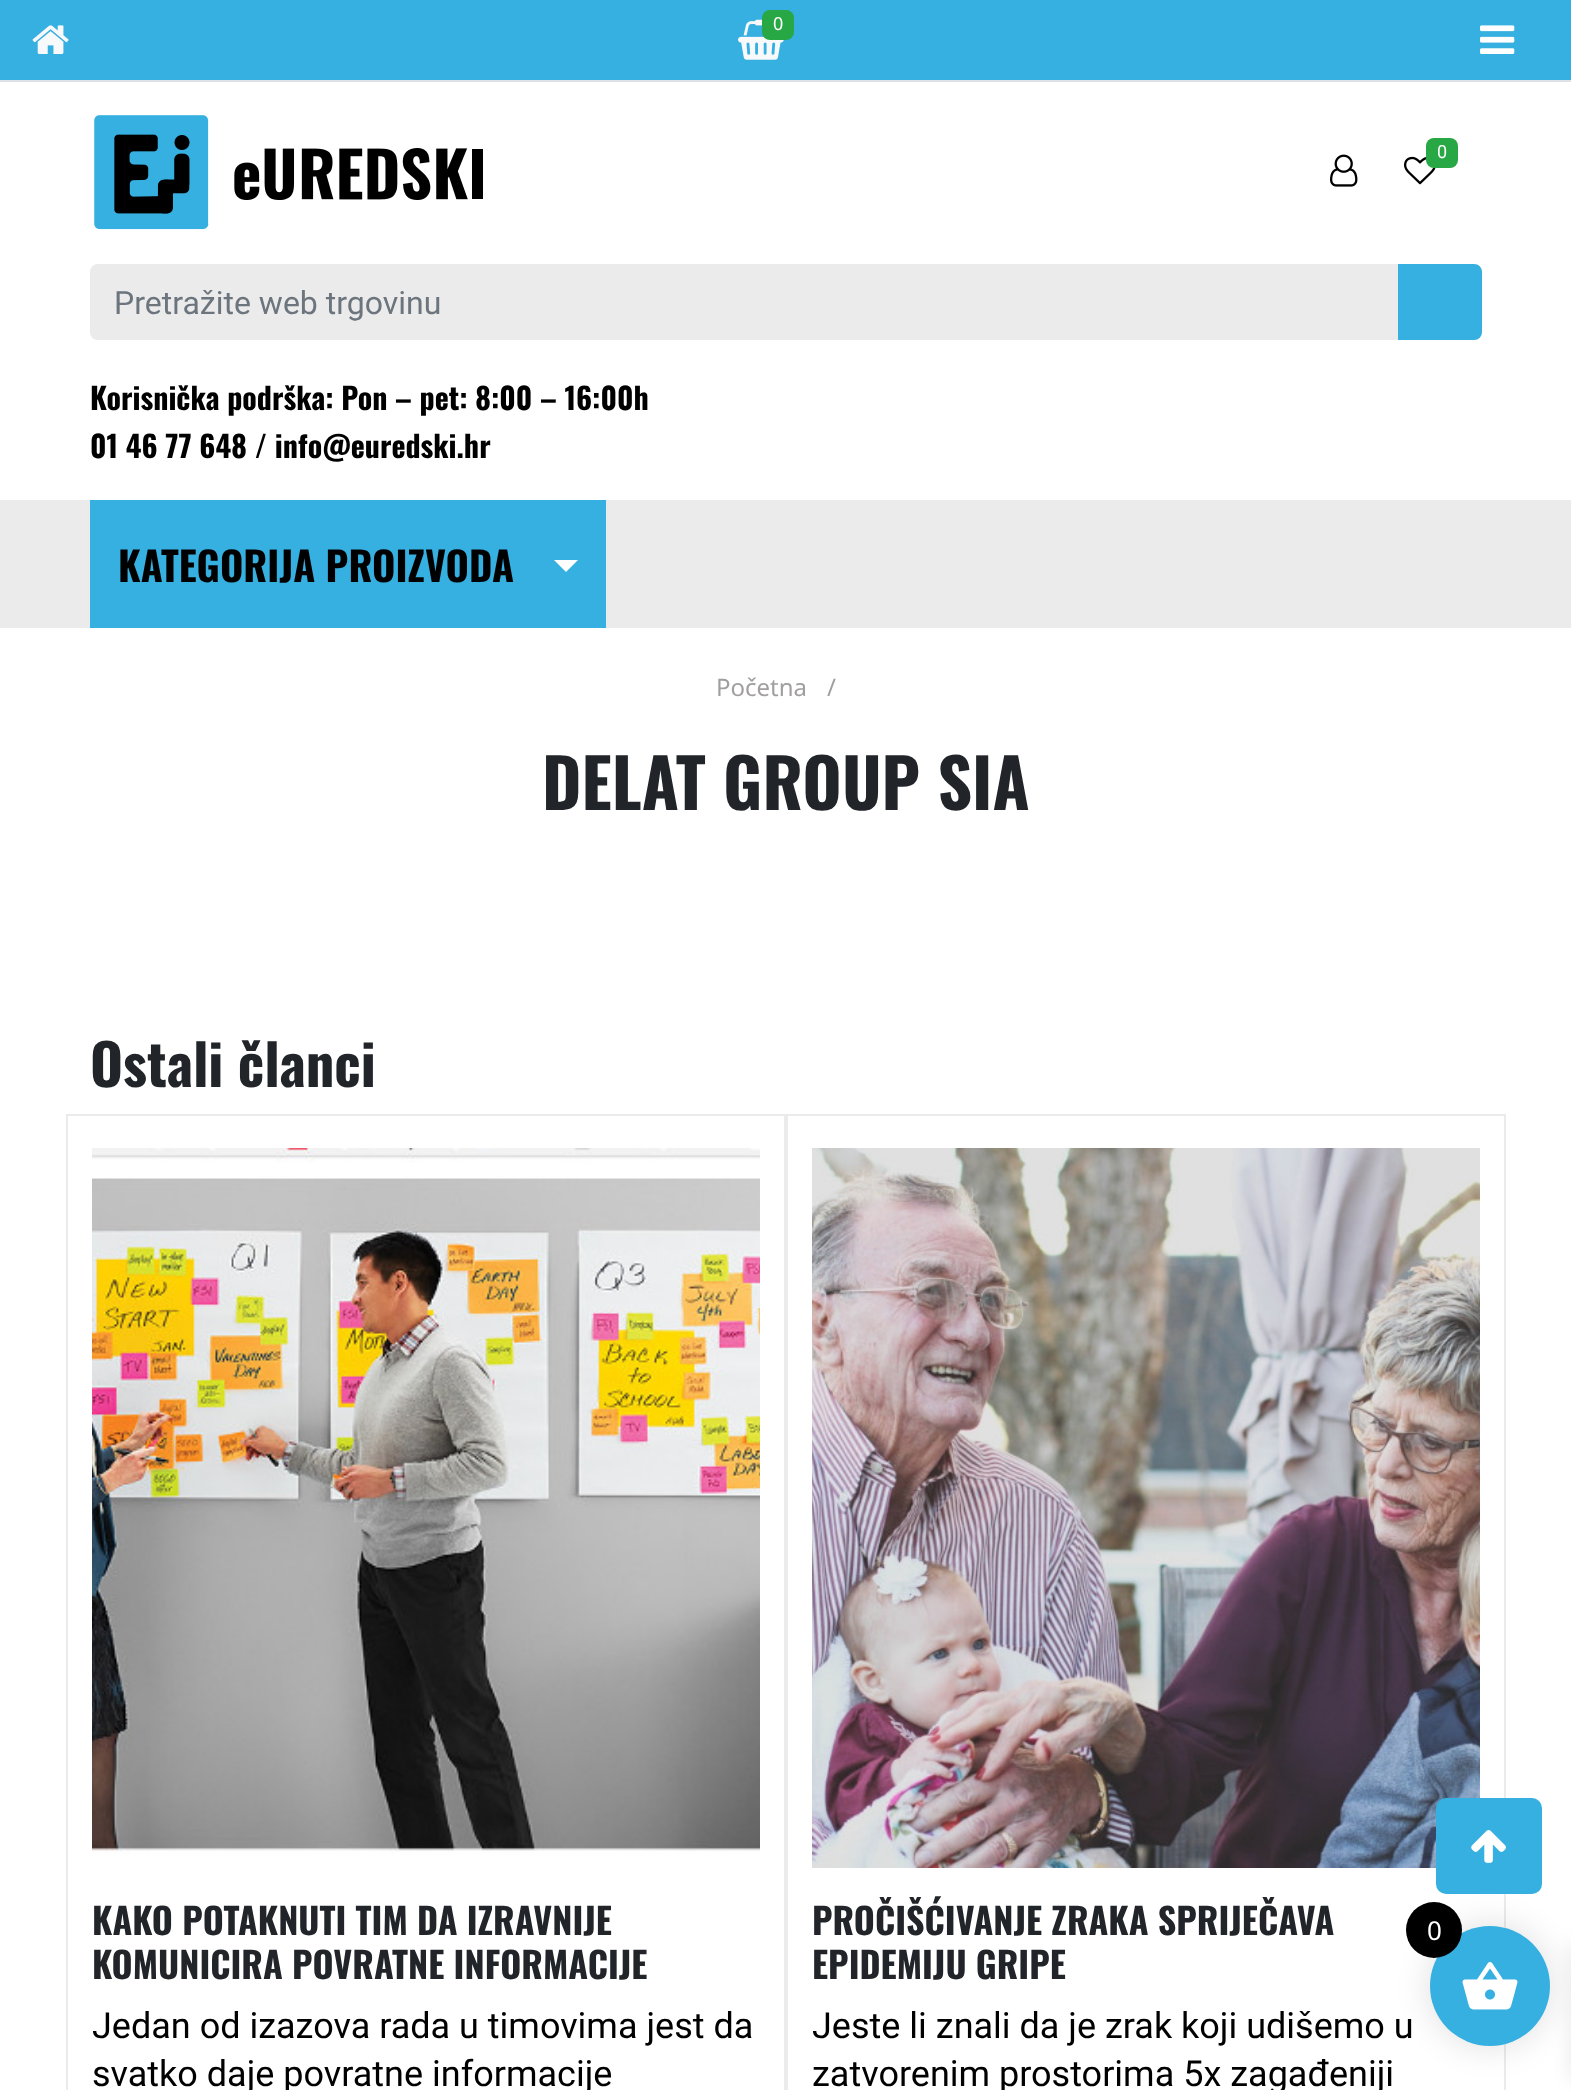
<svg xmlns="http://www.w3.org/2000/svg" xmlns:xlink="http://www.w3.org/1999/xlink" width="1571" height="2090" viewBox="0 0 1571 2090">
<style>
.cls-1{font:18px Noto Sans;fill:#ffffff}
.cls-2{font:18px Roboto;fill:#ffffff}
.cls-3{font:32px Roboto;fill:#6c757d}
.cls-4{font:bold 30px Oswald;fill:#000000}
.cls-5{font:bold 40px Oswald;fill:#000000}
.cls-6{font:24px Noto Sans;fill:#a19e9e}
.cls-7{font:bold 67.5px Oswald;fill:#212529}
.cls-8{font:bold 56.5px Oswald;fill:#212529}
.cls-9{font:bold 36px Oswald;fill:#212529}
.cls-10{font:36px Roboto;fill:#000000}
.cls-11{font:26px Noto Sans;fill:#ffffff}
</style>
<rect width="100%" height="100%" fill="#ffffff"/>
<rect fill="#36afe1" x="0" y="0" width="1571" height="80"/>
<rect fill="#dee2e6" x="0" y="80" width="1571" height="2"/>
<image xlink:href="image0.png" x="32" y="25" width="37" height="29"/>
<image xlink:href="image1.png" x="738" y="19" width="46" height="41"/>
<rect fill="#28a745" x="762" y="10" width="32" height="30" rx="8"/>
<image xlink:href="image2.png" x="1480" y="25" width="35" height="29"/>
<image xlink:href="image3.png" x="1404" y="156" width="32" height="29"/>
<rect fill="#28a745" x="1426" y="138" width="32" height="30" rx="8"/>
<image xlink:href="image4.png" x="1330" y="154" width="28" height="33"/>
<image xlink:href="image5.png" x="94" y="115" width="389" height="115"/>
<path fill="#ebebeb" d="M98 264H1400V340H98C93.5 340 90 336.5 90 332V272C90 267.5 93.5 264 98 264Z"/>
<path fill="#36afe1" d="M1398 264H1474C1478.5 264 1482 267.5 1482 272V332C1482 336.5 1478.5 340 1474 340H1398Z"/>
<rect fill="#ebebeb" x="0" y="500" width="1571" height="128"/>
<rect fill="#36afe1" x="90" y="500" width="516" height="128"/>
<path fill="#ffffff" d="M554 560H578L566 572Z"/>
<rect fill="none" stroke="#ebebeb" stroke-width="2" x="67" y="1115" width="718" height="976"/>
<image xlink:href="image6.png" x="92" y="1148" width="668" height="705"/>
<rect fill="none" stroke="#ebebeb" stroke-width="2" x="787" y="1115" width="718" height="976"/>
<image xlink:href="image7.png" x="812" y="1148" width="668" height="720"/>
<rect fill="#36afe1" x="1436" y="1798" width="106" height="96" rx="10"/>
<image xlink:href="image8.png" x="1471" y="1830" width="35" height="33"/>
<rect fill="#000000" fill-opacity="0.1" filter="blur(15px)" x="1426" y="1922" width="128" height="128" rx="64"/>
<rect fill="#000000" fill-opacity="0.1" filter="blur(10px)" x="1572" y="1944" width="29" height="136"/>
<circle fill="#36afe1" cx="1490" cy="1986" r="60"/>
<circle fill="#000000" cx="1434" cy="1930" r="28"/>
<image xlink:href="image9.png" x="1462" y="1962" width="56" height="48"/>
<text class="cls-1" x="773" y="30">0</text>
<text class="cls-2" x="1437" y="158">0</text>
<text class="cls-3" x="114" y="314">Pretražite web trgovinu</text>
<text class="cls-4"><tspan x="90" y="410">Korisnička podrška: Pon – pet: 8:00 – 16:00h</tspan><tspan x="90" y="458">01 46 77 648 / info@euredski.hr</tspan></text>
<text class="cls-5" x="118" y="582">KATEGORIJA PROIZVODA</text>
<text class="cls-6" x="716" y="696">Početna</text>
<text class="cls-6" x="827" y="696">/</text>
<text class="cls-7" x="542" y="810">DELAT GROUP SIA</text>
<text class="cls-8" x="90" y="1087">Ostali članci</text>
<text class="cls-9"><tspan x="92" y="1935">KAKO POTAKNUTI TIM DA IZRAVNIJE</tspan><tspan x="92" y="1979">KOMUNICIRA POVRATNE INFORMACIJE</tspan></text>
<text class="cls-10"><tspan x="92" y="2038">Jedan od izazova rada u timovima jest da</tspan><tspan x="92" y="2086">svatko daje povratne informacije</tspan></text>
<text class="cls-9"><tspan x="812" y="1935">PROČIŠĆIVANJE ZRAKA SPRIJEČAVA</tspan><tspan x="812" y="1979">EPIDEMIJU GRIPE</tspan></text>
<text class="cls-10"><tspan x="812" y="2038">Jeste li znali da je zrak koji udišemo u</tspan><tspan x="812" y="2086">zatvorenim prostorima 5x zagađeniji</tspan></text>
<text class="cls-11" x="1427" y="1940">0</text>
</svg>
